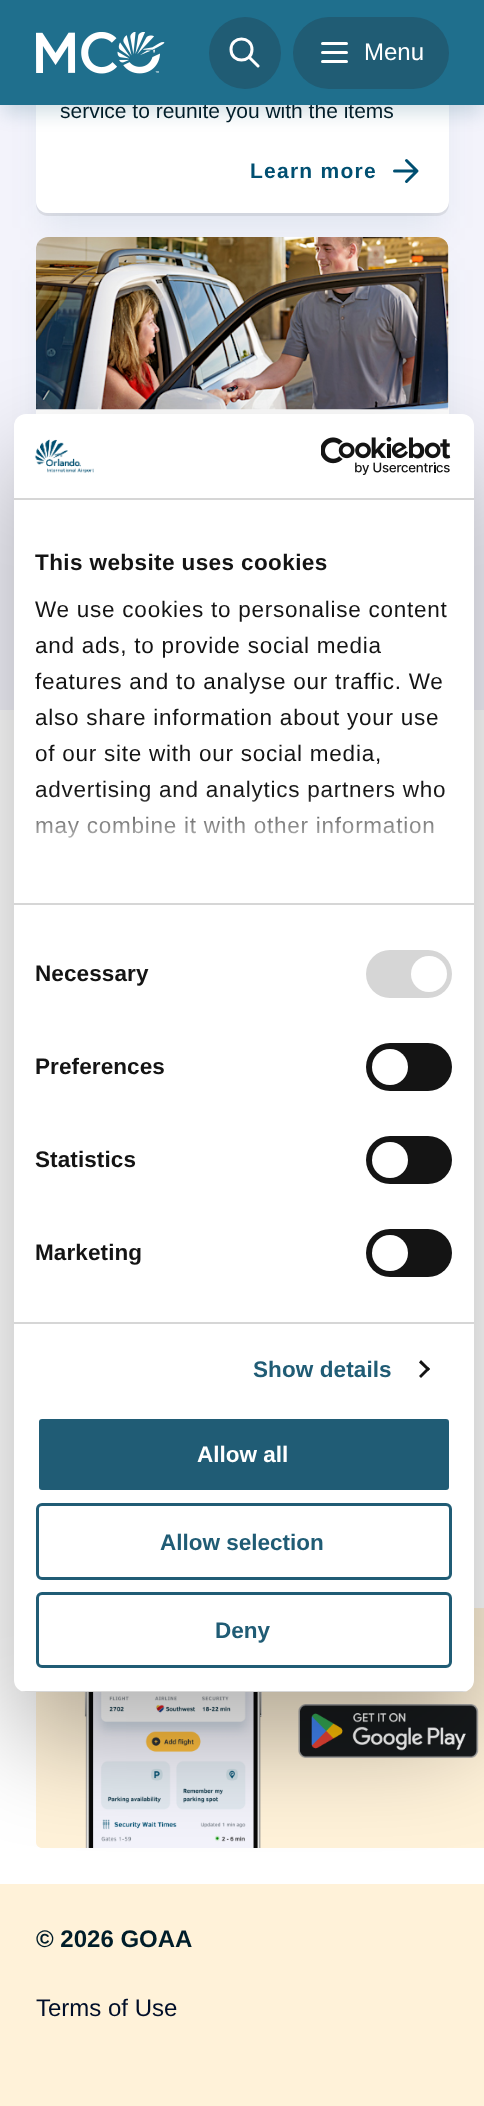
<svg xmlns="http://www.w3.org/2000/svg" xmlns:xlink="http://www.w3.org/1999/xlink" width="484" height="2106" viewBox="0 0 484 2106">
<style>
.cls-1{font:21px Liberation Sans;fill:#001d29}
.cls-2{font:24px Liberation Sans;fill:#ffffff}
.cls-3{font:bold 21px Liberation Sans;letter-spacing:1.25px;fill:#004f71}
.cls-4{font:bold 24px Liberation Sans;fill:#001d29}
.cls-5{font:24px Liberation Sans;fill:#000e29}
.cls-6{font:bold 22.5px Liberation Sans;letter-spacing:0.4px;fill:#141414}
.cls-7{font:22.5px Liberation Sans;letter-spacing:0.75px;fill:#141414}
.cls-8{font:bold 22.5px Liberation Sans;letter-spacing:0.1px;fill:#141414}
.cls-9{font:bold 22.5px Liberation Sans;letter-spacing:0.1px;fill:#205c75}
.cls-10{font:bold 22.5px Liberation Sans;fill:#ffffff}
.cls-11{font:bold 22.5px Liberation Sans;fill:#205c75}
</style>
<defs>
<clipPath id="clip1"><rect x="14" y="414" width="460" height="1278" rx="12"/></clipPath>
<linearGradient id="g1" gradientUnits="userSpaceOnUse" x1="233" y1="903" x2="233" y2="791"><stop offset="0" stop-color="#ffffff"/><stop offset="0.5" stop-color="#ffffff" stop-opacity="0.8"/><stop offset="1" stop-color="#ffffff" stop-opacity="0"/></linearGradient>
</defs>
<rect width="100%" height="100%" fill="#f3f3fb"/>
<rect fill="#00496a" fill-opacity="0.08" filter="blur(18px)" x="45" y="-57" width="395" height="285" rx="3"/>
<path fill="#000000" fill-opacity="0.08" d="M36 201V204C36 211 41 216 48 216H437C444 216 449 211 449 204V-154L448-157V201C448 208 443 213 436 213H48C41 213 36 208 36 201Z"/>
<rect fill="#ffffff" x="36" y="-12" width="413" height="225" rx="12"/>
<rect fill="#00496a" fill-opacity="0.16" filter="blur(9px)" x="3" y="15" width="479" height="99"/>
<path fill="none" stroke="#004f71" stroke-width="3" stroke-linecap="round" stroke-linejoin="round" d="M394.5 171H415.5M406.5 160.5L417 171L406.5 181.5"/>
<rect fill="#00496a" fill-opacity="0.08" filter="blur(18px)" x="45" y="270" width="395" height="365" rx="3"/>
<rect fill="#ffffff" x="36" y="237" width="413" height="383" rx="12"/>
<image xlink:href="image1.png" x="36" y="237" width="413" height="173"/>
<rect fill="#ffffff" x="0" y="710" width="484" height="1174"/>
<path fill="#fff2d9" d="M42 1608H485V1848H42C38.5 1848 36 1845.5 36 1842V1614C36 1610.5 38.5 1608 42 1608Z"/>
<image xlink:href="image2.png" x="84" y="1692" width="178" height="156"/>
<image xlink:href="image3.png" x="298" y="1704" width="181" height="54"/>
<rect fill="#fff2d9" x="0" y="1884" width="484" height="222"/>
<rect fill="#000000" fill-opacity="0.3" filter="blur(51px)" x="14" y="462" width="460" height="1278" rx="12"/>
<rect fill="#ffffff" x="14" y="414" width="460" height="1278" rx="12"/>
<rect fill="#d6d6d6" x="14" y="498" width="460" height="2"/>
<image xlink:href="image4.png" x="34" y="439" width="60" height="34"/>
<image xlink:href="image5.png" x="321" y="437" width="130" height="38"/>
<rect fill="#d6d6d6" x="14" y="903" width="460" height="2"/>
<rect fill="#d6d6d6" x="14" y="1322" width="460" height="2"/>
<rect fill="#d6d6d6" x="366" y="950" width="86" height="48" rx="24"/>
<circle fill="#ffffff" cx="429" cy="974" r="18"/>
<rect fill="#141414" x="366" y="1043" width="86" height="48" rx="24"/>
<circle fill="#ffffff" cx="390" cy="1067" r="18"/>
<rect fill="#141414" x="366" y="1136" width="86" height="48" rx="24"/>
<circle fill="#ffffff" cx="390" cy="1160" r="18"/>
<rect fill="#141414" x="366" y="1229" width="86" height="48" rx="24"/>
<circle fill="#ffffff" cx="390" cy="1253" r="18"/>
<path fill="#141414" d="M421 1360L430 1369L428 1371L419 1362.5Z"/>
<path fill="#141414" d="M428 1367L430 1369L421 1378L419 1376Z"/>
<g clip-path="url(#clip1)">
<rect fill="#d6d6d6" x="14" y="1691" width="460" height="1"/>
</g>
<rect fill="#205c75" stroke="#ffffff" stroke-width="3" x="37.5" y="1417.5" width="413" height="74" rx="4.5"/>
<rect fill="none" stroke="#205c75" stroke-width="3" x="37.5" y="1504.5" width="413" height="74" rx="4.5"/>
<rect fill="none" stroke="#205c75" stroke-width="3" x="37.5" y="1593.5" width="413" height="73" rx="4.5"/>
<text class="cls-1" x="60" y="118">service to reunite you with the items</text>
<rect fill="#1f6f8d" x="0" y="0" width="484" height="105"/>
<rect fill="#205c74" x="293" y="17" width="156" height="72" rx="36"/>
<path fill="none" stroke="#ffffff" stroke-width="3" stroke-linecap="round" stroke-linejoin="round" d="M322.5 43.5H346.5M322.5 52.5H346.5M322.5 61.5H346.5"/>
<text class="cls-2" x="364" y="60">Menu</text>
<circle fill="#205c74" cx="245" cy="53" r="36"/>
<path fill="none" stroke="#ffffff" stroke-width="3" stroke-linecap="round" stroke-linejoin="round" d="M231 49.5C231 63.5 252 63.5 252 49.5C252 35.5 231 35.5 231 49.5M258 66L249 57"/>
<image xlink:href="image0.png" x="36" y="32" width="129" height="42"/>
<text class="cls-3" x="250" y="178">Learn more</text>
<text class="cls-4" x="36" y="1947">© 2026 GOAA</text>
<text class="cls-5" x="36" y="2016">Terms of Use</text>
<text class="cls-6" x="35" y="570">This website uses cookies</text>
<text class="cls-7"><tspan x="35" y="617">We use cookies to personalise content</tspan><tspan x="35" y="653">and ads, to provide social media</tspan><tspan x="35" y="689">features and to analyse our traffic. We</tspan><tspan x="35" y="725">also share information about your use</tspan><tspan x="35" y="761">of our site with our social media,</tspan><tspan x="35" y="797">advertising and analytics partners who</tspan><tspan x="35" y="833">may combine it with other information</tspan></text>
<rect fill="url(#g1)" x="35" y="793" width="409" height="45"/>
<text class="cls-8" x="35" y="981">Necessary</text>
<text class="cls-8" x="35" y="1074">Preferences</text>
<text class="cls-8" x="35" y="1167">Statistics</text>
<text class="cls-8" x="35" y="1260">Marketing</text>
<text class="cls-9" x="253" y="1377">Show details</text>
<text class="cls-10" x="197" y="1462">Allow all</text>
<text class="cls-11" x="160" y="1550">Allow selection</text>
<text class="cls-11" x="215" y="1638">Deny</text>
</svg>
